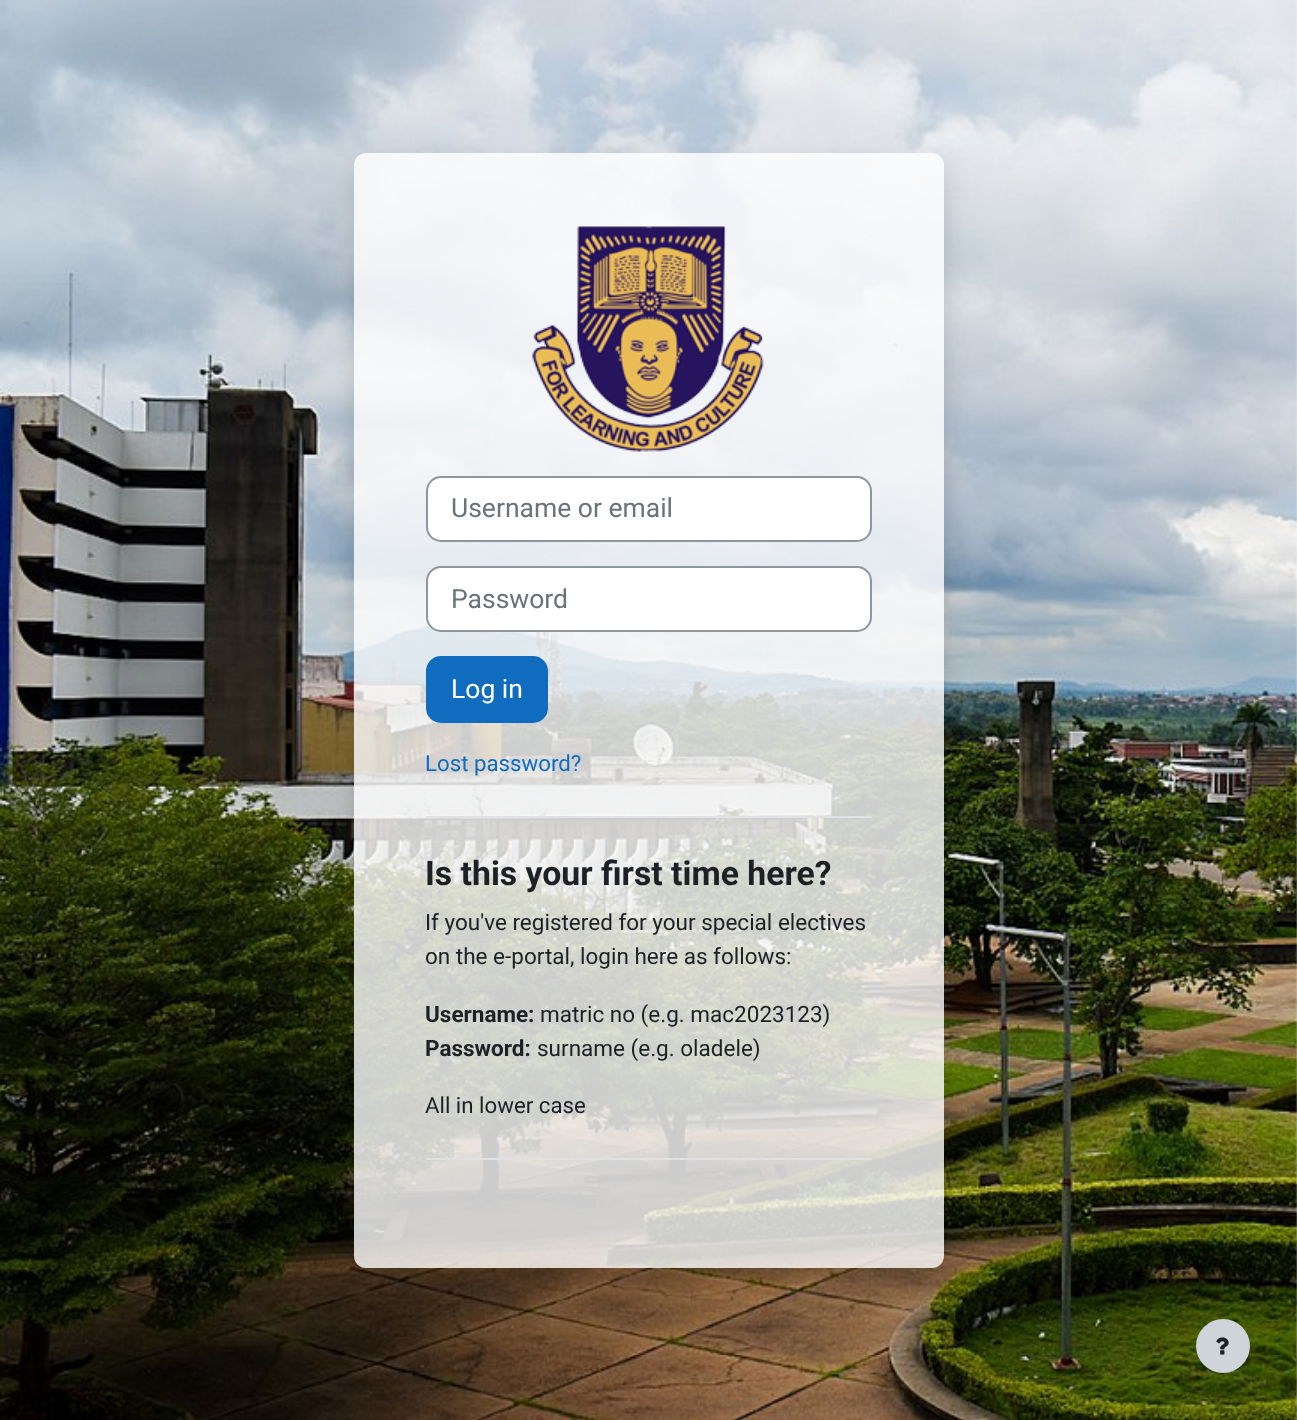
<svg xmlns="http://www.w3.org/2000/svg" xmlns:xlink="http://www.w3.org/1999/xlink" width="1297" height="1420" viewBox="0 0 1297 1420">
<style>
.cls-1{font:26.5px Roboto;fill:#6a737b}
.cls-2{font:26.5px Roboto;fill:#ffffff}
.cls-3{font:22.25px Roboto;fill:#0f6cbf}
.cls-4{font:bold 33.75px Roboto;fill:#1d2125}
.cls-5{font:22.5px Roboto;fill:#1d2125}
.cls-6{font:bold 22.5px Roboto;fill:#1d2125}
.cls-7{font:22.25px Roboto;fill:#1d2125}
</style>
<defs>
<clipPath id="clip1"><path d="M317 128H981V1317H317ZM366 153H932C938.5 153 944 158.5 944 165V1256C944 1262.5 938.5 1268 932 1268H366C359.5 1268 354 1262.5 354 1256V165C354 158.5 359.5 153 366 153Z" clip-rule="evenodd"/></clipPath>
</defs>
<rect width="100%" height="100%" fill="#ffffff"/>
<image xlink:href="image0.png" x="0" y="0" width="1297" height="1420"/>
<g clip-path="url(#clip1)">
<rect fill="#000000" fill-opacity="0.15" filter="blur(12px)" x="354" y="165" width="590" height="1115" rx="12"/>
</g>
<rect fill="#ffffff" fill-opacity="0.8" x="354" y="153" width="590" height="1115" rx="12"/>
<image xlink:href="image1.png" x="532" y="226" width="232" height="226"/>
<rect fill="#ffffff" stroke="#8f959e" stroke-width="2" x="427" y="477" width="444" height="64" rx="14"/>
<rect fill="#ffffff" stroke="#8f959e" stroke-width="2" x="427" y="567" width="444" height="64" rx="14"/>
<rect fill="#0f6cbf" stroke="#0f6cbf" stroke-width="2" x="427" y="657" width="120" height="65" rx="14"/>
<rect fill="#dee2e6" x="426" y="816" width="446" height="2"/>
<rect fill="#dee2e6" x="426" y="1158" width="446" height="2"/>
<circle fill="#ced4da" cx="1223" cy="1346" r="27"/>
<image xlink:href="image2.png" x="1216" y="1337" width="13" height="18"/>
<text class="cls-1" x="451" y="517">Username or email</text>
<text class="cls-1" x="451" y="608">Password</text>
<text class="cls-2" x="451" y="698">Log in</text>
<text class="cls-3" x="425" y="771">Lost password?</text>
<text class="cls-4" x="425" y="885">Is this your first time here?</text>
<text class="cls-5"><tspan x="425" y="930">If you've registered for your special electives</tspan><tspan x="425" y="964">on the e-portal, login here as follows:</tspan></text>
<text class="cls-6" x="425" y="1022">Username:</text>
<text class="cls-5" x="540" y="1022">matric no (e.g. mac2023123)</text>
<text class="cls-6" x="425" y="1056">Password:</text>
<text class="cls-5" x="537" y="1056">surname (e.g. oladele)</text>
<text class="cls-7" x="425" y="1113">All in lower case</text>
</svg>
